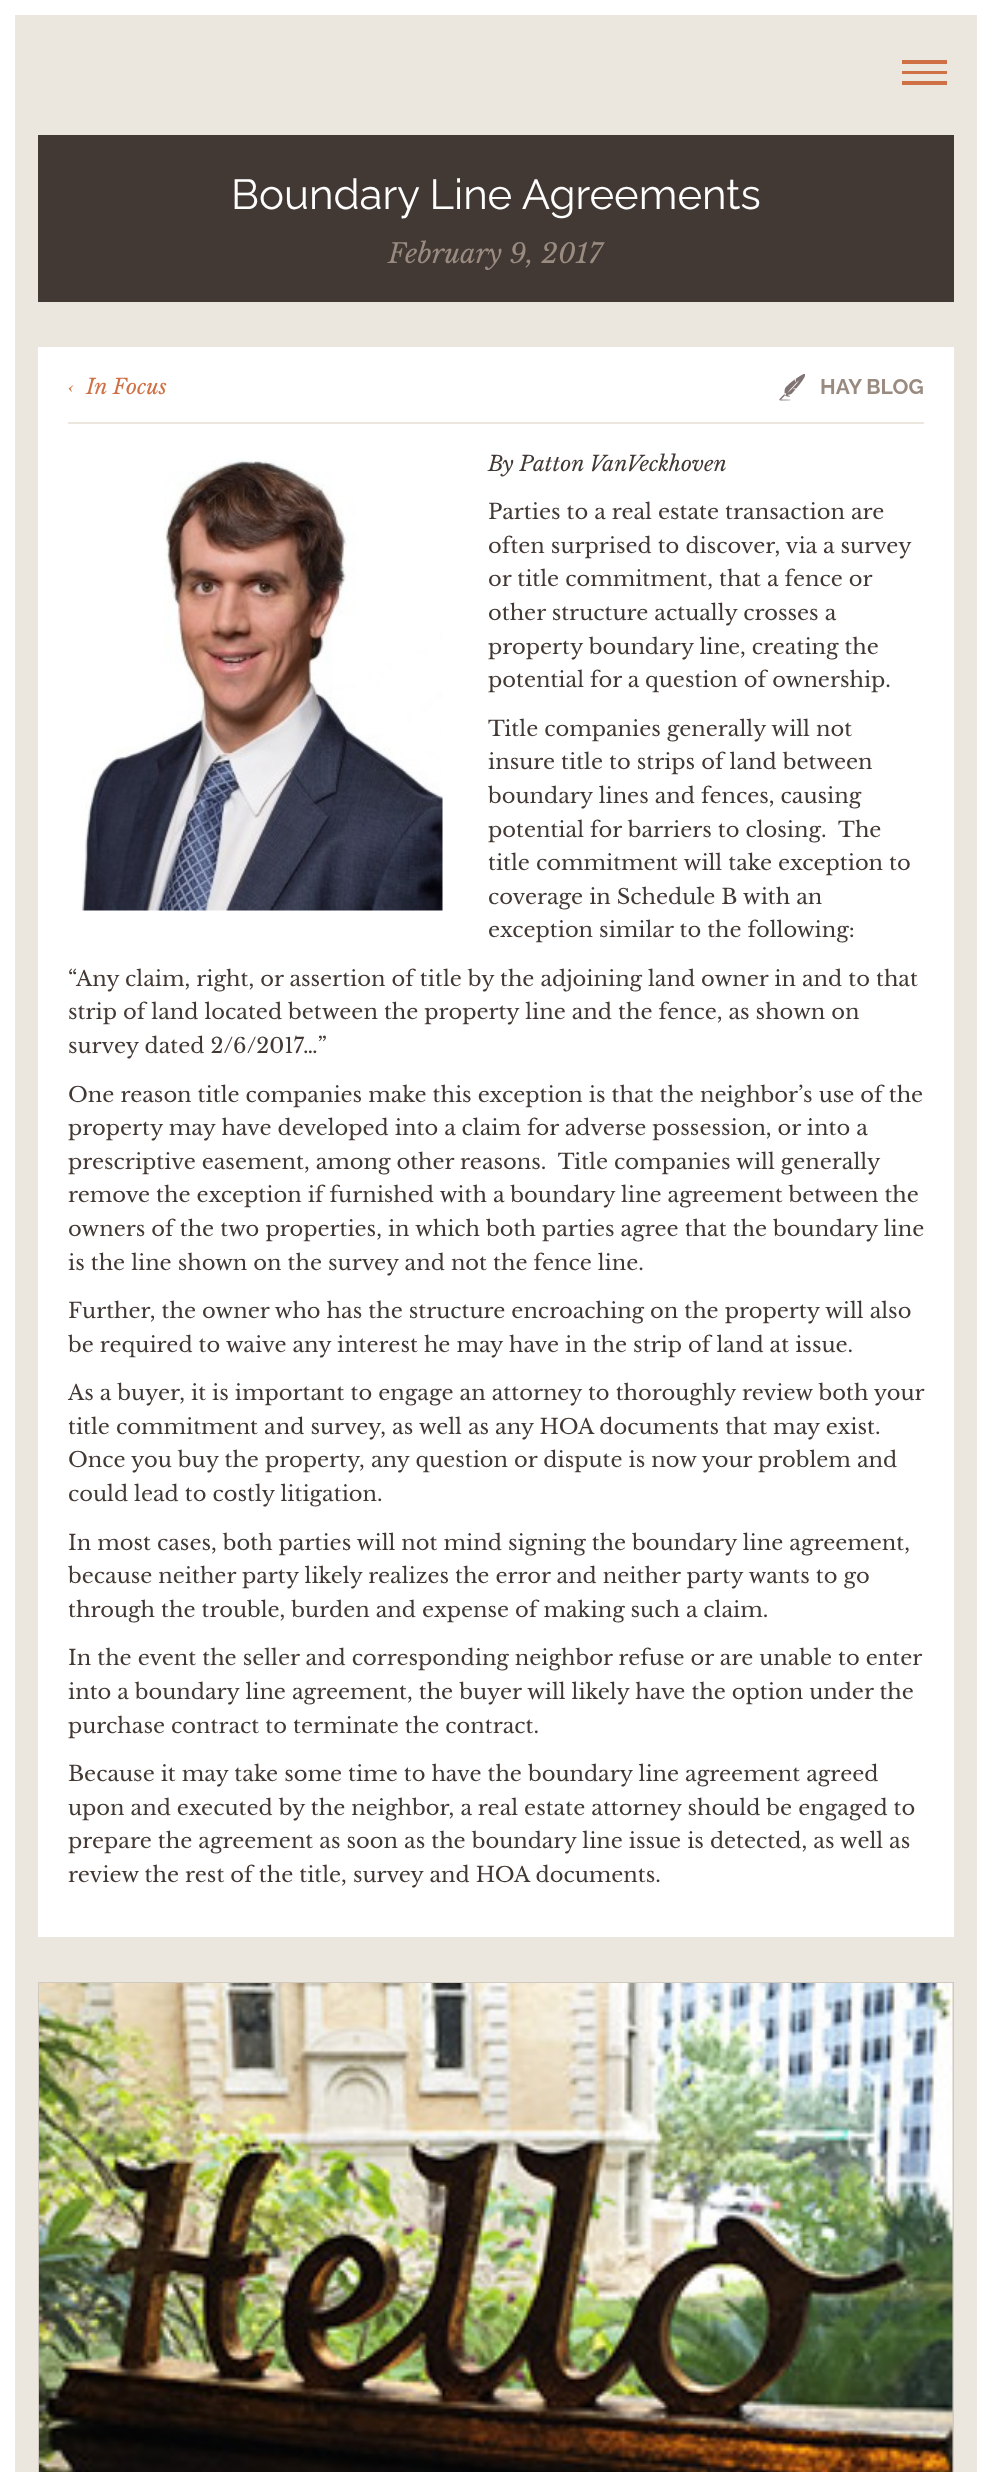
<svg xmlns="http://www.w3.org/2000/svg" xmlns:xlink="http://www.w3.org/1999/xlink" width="991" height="2472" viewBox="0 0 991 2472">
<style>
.cls-1{font:42px Raleway;fill:#ffffff}
.cls-2{font:italic 27px Libre Baskerville;fill:#998b80}
.cls-3{font:italic 21px Libre Baskerville;fill:#cf7145}
.cls-4{font:bold 21px Raleway;fill:#998b80}
.cls-5{font:italic 21px Libre Baskerville;fill:#433934}
.cls-6{font:21px Libre Baskerville;fill:#433934}
</style>
<rect width="100%" height="100%" fill="#ebe7df"/>
<rect fill="none" stroke="#ffffff" stroke-width="15" x="7.5" y="7.5" width="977" height="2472"/>
<rect fill="#cf7145" x="902" y="60" width="45" height="4"/>
<rect fill="#cf7145" x="902" y="71" width="45" height="3"/>
<rect fill="#cf7145" x="902" y="81" width="45" height="4"/>
<rect fill="#433934" x="38" y="135" width="916" height="167"/>
<rect fill="#ffffff" x="38" y="347" width="916" height="1590"/>
<rect fill="#ebe7df" x="68" y="422" width="856" height="2"/>
<image xlink:href="image0.png" x="779" y="374" width="26" height="27"/>
<image xlink:href="image1.png" x="81" y="459" width="362" height="452"/>
<rect fill="none" stroke="#d0c9c0" stroke-width="2" x="39" y="1983" width="914" height="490"/>
<image xlink:href="image2.png" x="39" y="1983" width="914" height="489"/>
<text class="cls-1" x="231" y="209">Boundary Line Agreements</text>
<text class="cls-2" x="388" y="263">February 9, 2017</text>
<text class="cls-3" x="68" y="394">‹</text>
<text class="cls-3" x="86" y="394">In Focus</text>
<text class="cls-4" x="820" y="394">HAY BLOG</text>
<text class="cls-5" x="488" y="471">By Patton VanVeckhoven</text>
<text class="cls-6"><tspan x="488" y="519">Parties to a real estate transaction are</tspan><tspan x="488" y="553">often surprised to discover, via a survey</tspan><tspan x="488" y="586">or title commitment, that a fence or</tspan><tspan x="488" y="620">other structure actually crosses a</tspan><tspan x="488" y="654">property boundary line, creating the</tspan><tspan x="488" y="687">potential for a question of ownership.</tspan></text>
<text class="cls-6" xml:space="preserve"><tspan x="488" y="736">Title companies generally will not</tspan><tspan x="488" y="769">insure title to strips of land between</tspan><tspan x="488" y="803">boundary lines and fences, causing</tspan><tspan x="488" y="837">potential for barriers to closing.  The</tspan><tspan x="488" y="870">title commitment will take exception to</tspan><tspan x="488" y="904">coverage in Schedule B with an</tspan><tspan x="488" y="937">exception similar to the following:</tspan></text>
<text class="cls-6"><tspan x="68" y="986">“Any claim, right, or assertion of title by the adjoining land owner in and to that</tspan><tspan x="68" y="1019">strip of land located between the property line and the fence, as shown on</tspan><tspan x="68" y="1053">survey dated 2/6/2017…”</tspan></text>
<text class="cls-6" xml:space="preserve"><tspan x="68" y="1102">One reason title companies make this exception is that the neighbor’s use of the</tspan><tspan x="68" y="1135">property may have developed into a claim for adverse possession, or into a</tspan><tspan x="68" y="1169">prescriptive easement, among other reasons.  Title companies will generally</tspan><tspan x="68" y="1202">remove the exception if furnished with a boundary line agreement between the</tspan><tspan x="68" y="1236">owners of the two properties, in which both parties agree that the boundary line</tspan><tspan x="68" y="1270">is the line shown on the survey and not the fence line.</tspan></text>
<text class="cls-6"><tspan x="68" y="1318">Further, the owner who has the structure encroaching on the property will also</tspan><tspan x="68" y="1352">be required to waive any interest he may have in the strip of land at issue.</tspan></text>
<text class="cls-6"><tspan x="68" y="1400">As a buyer, it is important to engage an attorney to thoroughly review both your</tspan><tspan x="68" y="1434">title commitment and survey, as well as any HOA documents that may exist.</tspan><tspan x="68" y="1467">Once you buy the property, any question or dispute is now your problem and</tspan><tspan x="68" y="1501">could lead to costly litigation.</tspan></text>
<text class="cls-6"><tspan x="68" y="1550">In most cases, both parties will not mind signing the boundary line agreement,</tspan><tspan x="68" y="1583">because neither party likely realizes the error and neither party wants to go</tspan><tspan x="68" y="1617">through the trouble, burden and expense of making such a claim.</tspan></text>
<text class="cls-6"><tspan x="68" y="1665">In the event the seller and corresponding neighbor refuse or are unable to enter</tspan><tspan x="68" y="1699">into a boundary line agreement, the buyer will likely have the option under the</tspan><tspan x="68" y="1733">purchase contract to terminate the contract.</tspan></text>
<text class="cls-6"><tspan x="68" y="1781">Because it may take some time to have the boundary line agreement agreed</tspan><tspan x="68" y="1815">upon and executed by the neighbor, a real estate attorney should be engaged to</tspan><tspan x="68" y="1848">prepare the agreement as soon as the boundary line issue is detected, as well as</tspan><tspan x="68" y="1882">review the rest of the title, survey and HOA documents.</tspan></text>
</svg>
